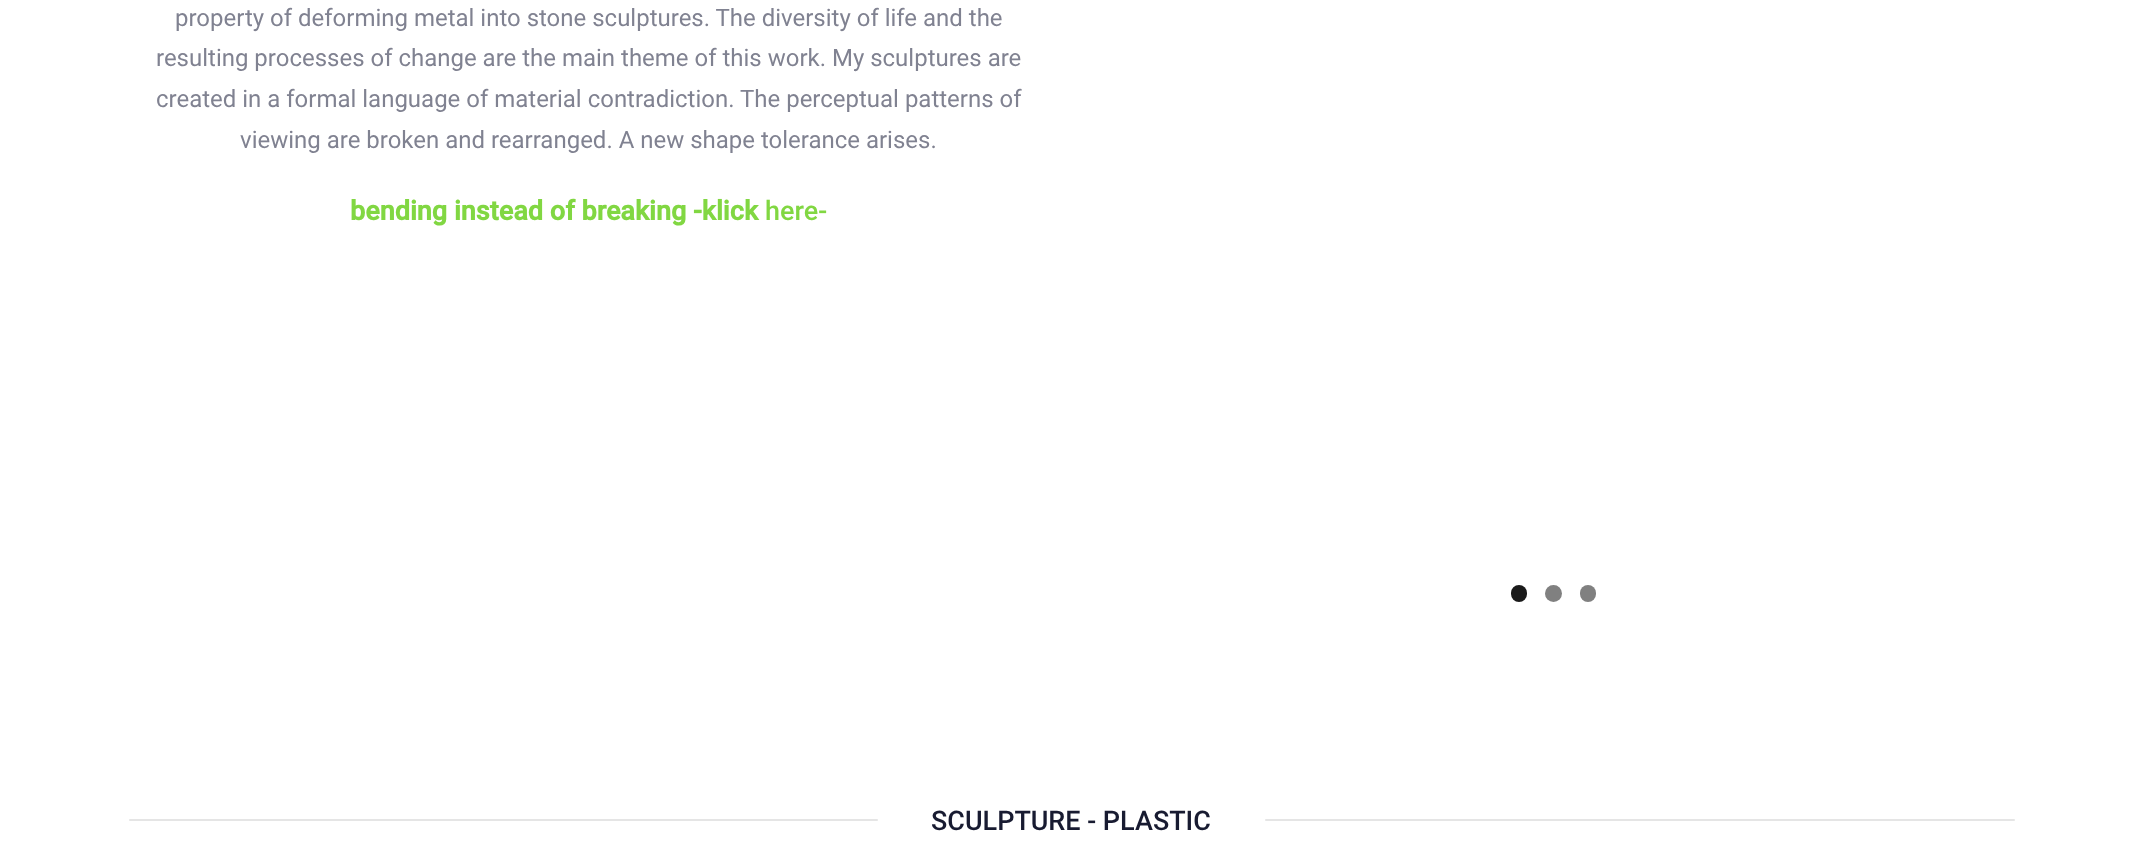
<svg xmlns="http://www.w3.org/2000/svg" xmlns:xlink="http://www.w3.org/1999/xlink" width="2141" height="841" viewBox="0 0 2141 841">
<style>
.cls-1{font:24px Roboto;fill:#808291}
.cls-2{font:bold 27px Roboto;fill:#81d742}
.cls-3{font:500 27px Roboto;fill:#81d742}
.cls-4{font:500 27px Roboto;fill:#181b31}
</style>
<rect width="100%" height="100%" fill="#ffffff"/>
<rect fill="#1a1a1a" x="1511" y="585" width="16" height="17" rx="8"/>
<circle fill="#808080" cx="1553.5" cy="593.5" r="8.5"/>
<rect fill="#808080" x="1580" y="585" width="16" height="17" rx="8"/>
<rect fill="#e5e5e5" x="129" y="819" width="749" height="2" rx="1"/>
<rect fill="#e5e5e5" x="1265" y="819" width="750" height="2" rx="1"/>
<text class="cls-1" x="175" y="26">property of deforming metal into stone sculptures. The diversity of life and the</text>
<text class="cls-1"><tspan x="156" y="66">resulting processes of change are the main theme of this work. My sculptures are</tspan><tspan x="156" y="107">created in a formal language of material contradiction. The perceptual patterns of</tspan></text>
<text class="cls-1" x="240" y="148">viewing are broken and rearranged. A new shape tolerance arises.</text>
<text class="cls-2" x="350" y="220">bending instead of breaking -klick</text>
<text class="cls-3" x="765" y="220">here-</text>
<text class="cls-4" x="931" y="830">SCULPTURE - PLASTIC</text>
</svg>
